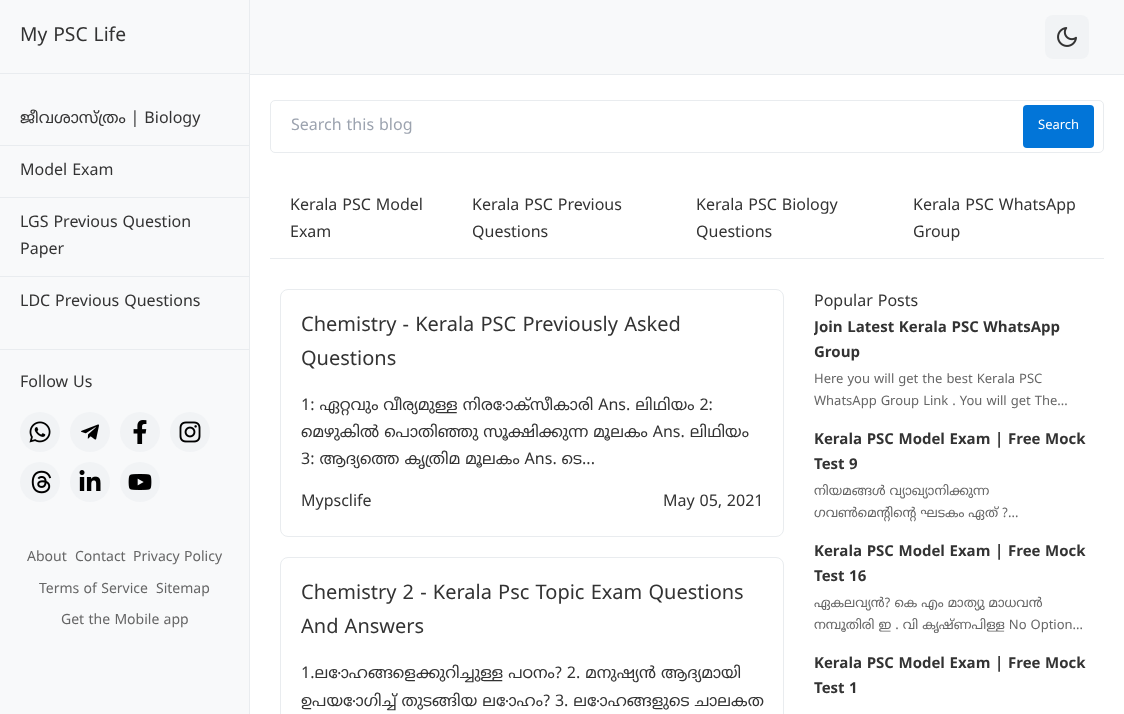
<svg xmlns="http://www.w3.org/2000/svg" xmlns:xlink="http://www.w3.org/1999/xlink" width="1124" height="714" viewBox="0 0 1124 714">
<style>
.cls-1{font:19.25px Noto Sans Malayalam;fill:#333333}
.cls-2{font:16px Noto Sans Malayalam;fill:#333333}
.cls-3{font:14px Noto Sans Malayalam;fill:#666666}
.cls-4{font:16px Noto Sans Malayalam;fill:#9ca3af}
.cls-5{font:13px Noto Sans Malayalam;fill:#ffffff}
.cls-6{font:20px Noto Sans Malayalam;fill:#333333}
.cls-7{font:bold 15px Noto Sans Malayalam;fill:#333333}
.cls-8{font:13px Noto Sans Malayalam;fill:#666666}
</style>
<defs>
<clipPath id="clip1"><rect x="814" y="316" width="280" height="51"/></clipPath>
<clipPath id="clip2"><rect x="814" y="481" width="280" height="44"/></clipPath>
</defs>
<rect width="100%" height="100%" fill="#ffffff"/>
<rect fill="#f8f9fa" x="0" y="0" width="249" height="714"/>
<rect fill="#e9ecef" x="249" y="0" width="1" height="714"/>
<rect fill="#e9ecef" x="0" y="73" width="249" height="1"/>
<rect fill="#e9ecef" x="0" y="145" width="249" height="1"/>
<rect fill="#e9ecef" x="0" y="197" width="249" height="1"/>
<rect fill="#e9ecef" x="0" y="276" width="249" height="1"/>
<rect fill="#e9ecef" x="0" y="349" width="249" height="1"/>
<circle fill="#f1f3f5" cx="40" cy="432" r="20"/>
<image xlink:href="image0.png" x="29" y="421" width="22" height="22"/>
<circle fill="#f1f3f5" cx="90" cy="432" r="20"/>
<image xlink:href="image1.png" x="81" y="424" width="18" height="16"/>
<circle fill="#f1f3f5" cx="140" cy="432" r="20"/>
<image xlink:href="image2.png" x="133" y="420" width="14" height="24"/>
<circle fill="#f1f3f5" cx="190" cy="432" r="20"/>
<image xlink:href="image3.png" x="179" y="421" width="22" height="22"/>
<circle fill="#f1f3f5" cx="40" cy="482" r="20"/>
<image xlink:href="image4.png" x="31" y="470" width="21" height="24"/>
<circle fill="#f1f3f5" cx="90" cy="482" r="20"/>
<image xlink:href="image5.png" x="79" y="470" width="22" height="21"/>
<circle fill="#f1f3f5" cx="140" cy="482" r="20"/>
<image xlink:href="image6.png" x="128" y="474" width="24" height="16"/>
<rect fill="#f8f9fa" x="250" y="0" width="874" height="74"/>
<rect fill="#e9ecef" x="250" y="74" width="874" height="1"/>
<rect fill="#f1f3f5" x="1045" y="15" width="44" height="44" rx="8"/>
<image xlink:href="image7.png" x="1057" y="27" width="20" height="20"/>
<rect fill="none" stroke="#e9ecef" x="270.5" y="100.5" width="833" height="52" rx="4.5"/>
<rect fill="#0275d8" x="1023" y="105" width="71" height="43" rx="4"/>
<rect fill="#e9ecef" x="270" y="258" width="834" height="1"/>
<rect fill="none" stroke="#e9ecef" x="280.5" y="289.5" width="503" height="247" rx="7.5"/>
<rect fill="none" stroke="#e9ecef" x="280.5" y="557.5" width="503" height="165" rx="7.5"/>
<text class="cls-1" x="20" y="41">My PSC Life</text>
<text class="cls-2" x="20" y="123">ജീവശാസ്ത്രം | Biology</text>
<text class="cls-2" x="20" y="175">Model Exam</text>
<text class="cls-2"><tspan x="20" y="227">LGS Previous Question</tspan><tspan x="20" y="254">Paper</tspan></text>
<text class="cls-2" x="20" y="306">LDC Previous Questions</text>
<text class="cls-2" x="20" y="387">Follow Us</text>
<text class="cls-3" x="27" y="561">About</text>
<text class="cls-3" x="75" y="561">Contact</text>
<text class="cls-3" x="133" y="561">Privacy Policy</text>
<text class="cls-3" x="39" y="593">Terms of Service</text>
<text class="cls-3" x="156" y="593">Sitemap</text>
<text class="cls-3" x="61" y="624">Get the Mobile app</text>
<text class="cls-4" x="291" y="130">Search this blog</text>
<text class="cls-5" x="1038" y="129">Search</text>
<text class="cls-2"><tspan x="290" y="210">Kerala PSC Model</tspan><tspan x="290" y="237">Exam</tspan></text>
<text class="cls-2"><tspan x="472" y="210">Kerala PSC Previous</tspan><tspan x="472" y="237">Questions</tspan></text>
<text class="cls-2"><tspan x="696" y="210">Kerala PSC Biology</tspan><tspan x="696" y="237">Questions</tspan></text>
<text class="cls-2"><tspan x="913" y="210">Kerala PSC WhatsApp</tspan><tspan x="913" y="237">Group</tspan></text>
<text class="cls-6"><tspan x="301" y="331">Chemistry - Kerala PSC Previously Asked</tspan><tspan x="301" y="365">Questions</tspan></text>
<text class="cls-2"><tspan x="301" y="410">1: ഏറ്റവും വീര്യമുള്ള നിരോക്സീകാരി Ans. ലിഥിയം 2:</tspan><tspan x="301" y="437">മെഴുകിൽ പൊതിഞ്ഞു സൂക്ഷിക്കുന്ന മൂലകം Ans. ലിഥിയം</tspan><tspan x="301" y="464">3: ആദ്യത്തെ കൃത്രിമ മൂലകം Ans. ടെ...</tspan></text>
<text class="cls-2" x="301" y="506">Mypsclife</text>
<text class="cls-2" x="663" y="506">May 05, 2021</text>
<text class="cls-6"><tspan x="301" y="599">Chemistry 2 - Kerala Psc Topic Exam Questions</tspan><tspan x="301" y="633">And Answers</tspan></text>
<text class="cls-2"><tspan x="301" y="678">1.ലോഹങ്ങളെക്കുറിച്ചുള്ള പഠനം? 2. മനുഷ്യൻ ആദ്യമായി</tspan><tspan x="301" y="706">ഉപയോഗിച്ച് തുടങ്ങിയ ലോഹം? 3. ലോഹങ്ങളുടെ ചാലകത</tspan></text>
<text class="cls-2" x="814" y="306">Popular Posts</text>
<g clip-path="url(#clip1)">
<text class="cls-7" x="814" y="332">Join Latest Kerala PSC WhatsApp</text>
</g>
<text class="cls-7" x="814" y="357">Group</text>
<text class="cls-8"><tspan x="814" y="383">Here you will get the best Kerala PSC</tspan><tspan x="814" y="405">WhatsApp Group Link . You will get The…</tspan></text>
<text class="cls-7"><tspan x="814" y="444">Kerala PSC Model Exam | Free Mock</tspan><tspan x="814" y="469">Test 9</tspan></text>
<g clip-path="url(#clip2)">
<text class="cls-8" x="814" y="495">നിയമങ്ങൾ വ്യാഖ്യാനിക്കുന്ന</text>
</g>
<text class="cls-8" x="814" y="517">ഗവൺമെന്റിന്റെ ഘടകം ഏത് ?…</text>
<text class="cls-7"><tspan x="814" y="556">Kerala PSC Model Exam | Free Mock</tspan><tspan x="814" y="581">Test 16</tspan></text>
<text class="cls-8"><tspan x="814" y="607">ഏകലവ്യൻ? കെ എം മാത്യു മാധവൻ</tspan><tspan x="814" y="629">നമ്പൂതിരി ഇ . വി കൃഷ്ണപിള്ള No Option…</tspan></text>
<text class="cls-7"><tspan x="814" y="668">Kerala PSC Model Exam | Free Mock</tspan><tspan x="814" y="693">Test 1</tspan></text>
</svg>
